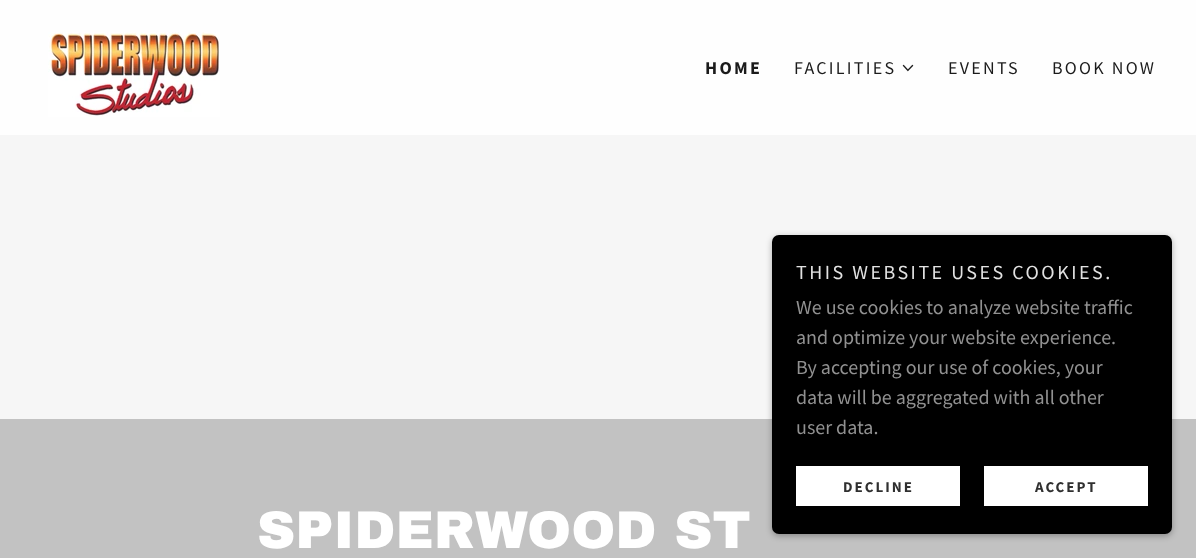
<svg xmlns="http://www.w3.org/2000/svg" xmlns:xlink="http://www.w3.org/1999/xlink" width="1196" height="558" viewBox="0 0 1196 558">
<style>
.cls-1{font:bold 18px Source Sans Pro;letter-spacing:2.25px;fill:#1b1b1b}
.cls-2{font:18px Source Sans Pro;letter-spacing:2.25px;fill:#1b1b1b}
.cls-3{font:20px Source Sans Pro;letter-spacing:2.5px;fill:#e2e2e2}
.cls-4{font:20px Source Sans Pro;fill:#919191}
.cls-5{font:bold 15px Source Sans Pro;letter-spacing:2px;fill:#303030}
.cls-6{font:900 53px Archivo Black;fill:#ffffff}
</style>
<rect width="100%" height="100%" fill="#f6f6f6"/>
<rect fill="#fefefe" x="0" y="0" width="1196" height="135"/>
<image xlink:href="image0.png" x="48" y="32" width="172" height="85"/>
<image xlink:href="image1.png" x="902" y="64" width="12" height="8"/>
<rect fill="#c2c2c2" x="0" y="419" width="1196" height="139"/>
<rect fill="#000000" fill-opacity="0.3" filter="blur(3px)" x="772" y="237" width="400" height="299" rx="7"/>
<rect fill="#000000" x="772" y="235" width="400" height="299" rx="7"/>
<rect fill="#ffffff" x="796" y="466" width="164" height="40"/>
<rect fill="#ffffff" x="984" y="466" width="164" height="40"/>
<text class="cls-1" x="705" y="74">HOME</text>
<text class="cls-2" x="794" y="74">FACILITIES</text>
<text class="cls-2" x="948" y="74">EVENTS</text>
<text class="cls-2" x="1052" y="74">BOOK NOW</text>
<text class="cls-3" x="796" y="279">THIS WEBSITE USES COOKIES.</text>
<text class="cls-4"><tspan x="796" y="314">We use cookies to analyze website traffic</tspan><tspan x="796" y="344">and optimize your website experience.</tspan><tspan x="796" y="374">By accepting our use of cookies, your</tspan><tspan x="796" y="404">data will be aggregated with all other</tspan><tspan x="796" y="434">user data.</tspan></text>
<text class="cls-5" x="843" y="492">DECLINE</text>
<text class="cls-5" x="1035" y="492">ACCEPT</text>
<text class="cls-6" x="257" y="548">SPIDERWOOD ST</text>
</svg>
